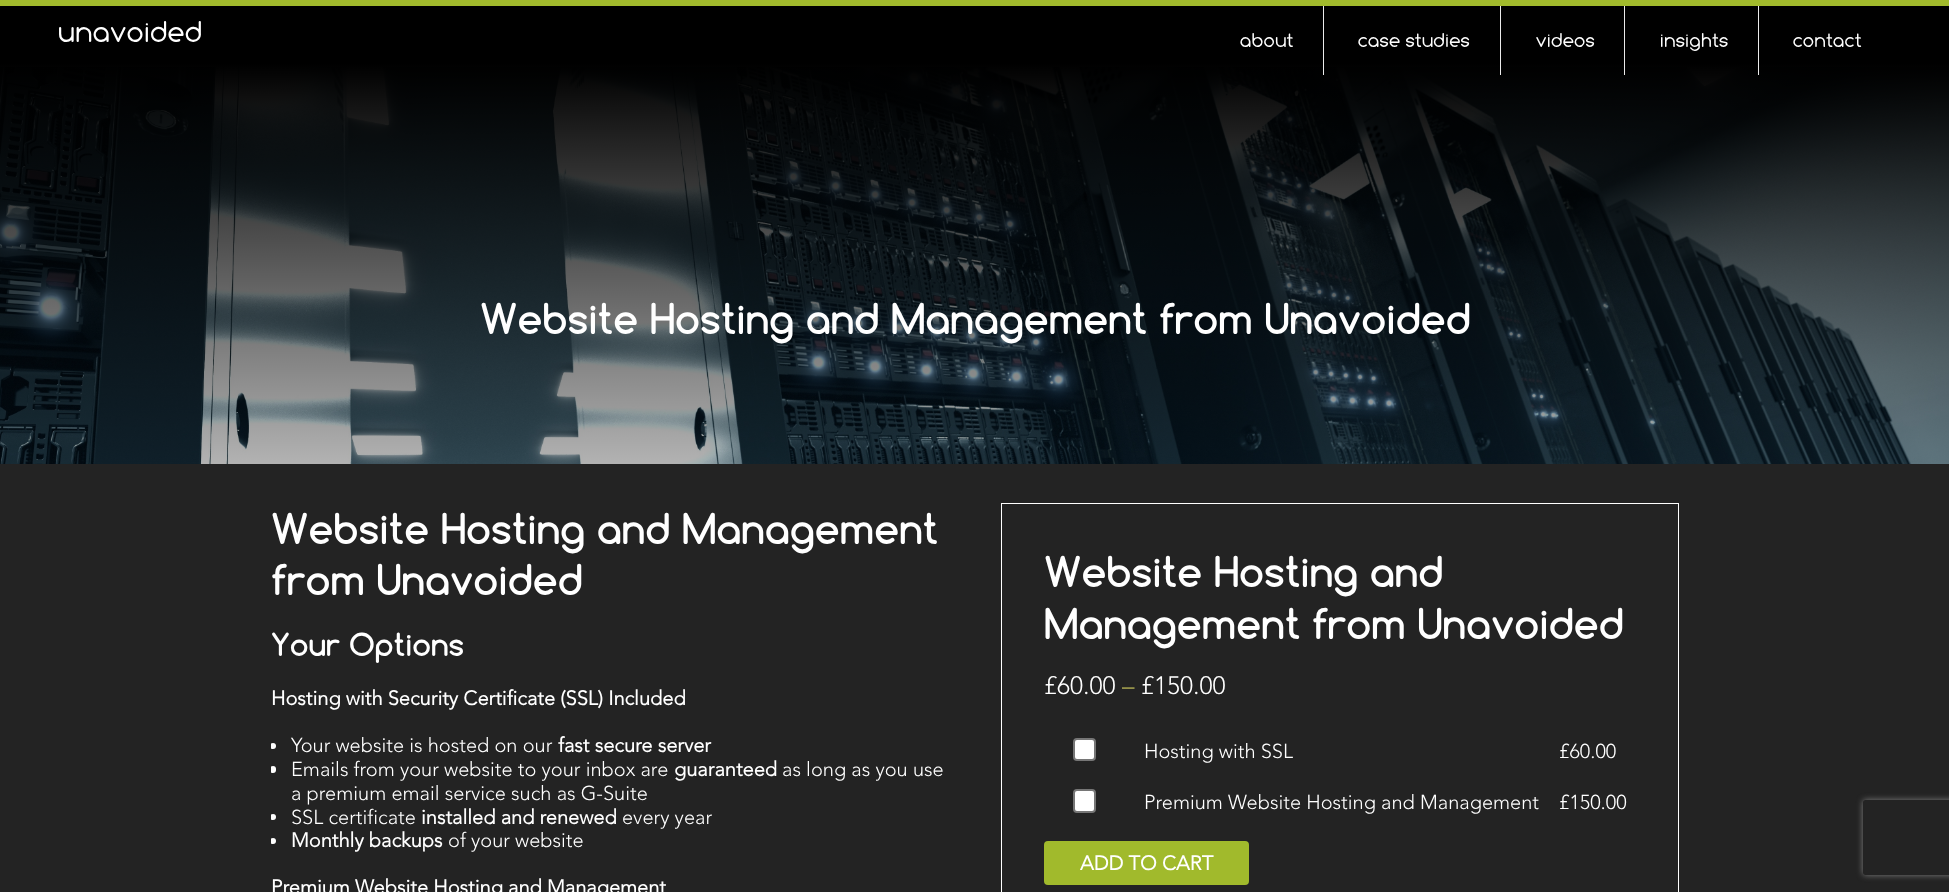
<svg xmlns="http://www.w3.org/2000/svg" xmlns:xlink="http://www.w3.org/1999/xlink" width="1949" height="892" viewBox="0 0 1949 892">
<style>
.cls-1{font:30px Comfortaa;fill:#ffffff}
.cls-2{font:20px Comfortaa;fill:#ffffff}
.cls-3{font:bold 40px Comfortaa;fill:#ffffff}
.cls-4{font:bold 30px Comfortaa;fill:#ffffff}
.cls-5{font:bold 20px 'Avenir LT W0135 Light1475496';fill:#ffffff}
.cls-6{font:300 20px 'Avenir LT W0135 Light1475496';fill:#ffffff}
.cls-7{font:300 25px 'Avenir LT W0135 Light1475496';fill:#ffffff}
.cls-8{font:300 25px 'Avenir LT W0135 Light1475496';fill:#b3af54}
</style>
<defs>
<linearGradient id="g1" gradientUnits="userSpaceOnUse" x1="975" y1="0" x2="975" y2="636"><stop offset="0.1" stop-color="#000000"/><stop offset="1" stop-color="#000000" stop-opacity="0"/></linearGradient>
<clipPath id="clip1"><rect x="271" y="503" width="1408" height="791"/></clipPath>
<clipPath id="clip2"><path d="M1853 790H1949V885H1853ZM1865.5 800H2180.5C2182 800 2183 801 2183 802.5V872.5C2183 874 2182 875 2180.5 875H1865.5C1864 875 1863 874 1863 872.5V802.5C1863 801 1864 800 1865.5 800Z" clip-rule="evenodd"/></clipPath>
</defs>
<rect width="100%" height="100%" fill="#ffffff"/>
<rect fill="#a1ba2c" x="0" y="0" width="1949" height="6"/>
<image xlink:href="image0.png" x="0" y="67" width="1949" height="397"/>
<rect fill="url(#g1)" x="0" y="6" width="1949" height="458"/>
<rect fill="#ebebeb" x="1323" y="6" width="1" height="69"/>
<rect fill="#ebebeb" x="1500" y="6" width="1" height="69"/>
<rect fill="#ebebeb" x="1624" y="6" width="1" height="69"/>
<rect fill="#ebebeb" x="1758" y="6" width="1" height="69"/>
<rect fill="#232323" x="0" y="464" width="1949" height="428"/>
<g clip-path="url(#clip1)">
<circle fill="#ffffff" cx="273" cy="746" r="3"/>
<rect fill="#ffffff" x="270" y="766" width="6" height="7" rx="3"/>
<circle fill="#ffffff" cx="273" cy="817" r="3"/>
<circle fill="#ffffff" cx="273" cy="841" r="3"/>
</g>
<rect fill="none" stroke="#ffffff" x="1001.5" y="503.5" width="677" height="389"/>
<rect fill="#ffffff" stroke="#767676" stroke-width="2" x="1074" y="739" width="21" height="21" rx="3"/>
<rect fill="#ffffff" stroke="#767676" stroke-width="2" x="1074" y="790" width="21" height="22" rx="3"/>
<rect fill="#a1ba2c" x="1044" y="841" width="205" height="44" rx="4"/>
<g clip-path="url(#clip2)">
<rect fill="#808080" filter="blur(3px)" x="1863" y="800" width="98" height="75" rx="2.5"/>
</g>
<text class="cls-1" x="58" y="42">unavoided</text>
<text class="cls-2" x="1240" y="47">about</text>
<text class="cls-2" x="1358" y="47">case studies</text>
<text class="cls-2" x="1536" y="47">videos</text>
<text class="cls-2" x="1660" y="47">insights</text>
<text class="cls-2" x="1793" y="47">contact</text>
<text class="cls-3" x="480" y="334">Website Hosting and Management from Unavoided</text>
<text class="cls-3"><tspan x="271" y="544">Website Hosting and Management</tspan><tspan x="271" y="595">from Unavoided</tspan></text>
<text class="cls-4" x="271" y="656">Your Options</text>
<text class="cls-5" x="271" y="705">Hosting with Security Certificate (SSL) Included</text>
<text class="cls-6" x="291" y="752">Your website is hosted on our</text>
<text class="cls-5" x="558" y="752">fast secure server</text>
<text class="cls-6" x="291" y="776">Emails from your website to your inbox are</text>
<text class="cls-5" x="674" y="776">guaranteed</text>
<text class="cls-6" x="782" y="776">as long as you use</text>
<text class="cls-6"><tspan x="291" y="800">a premium email service such as G-Suite</tspan><tspan x="291" y="824">SSL certificate</tspan></text>
<text class="cls-5" x="421" y="824">installed and renewed</text>
<text class="cls-6" x="622" y="824">every year</text>
<text class="cls-5" x="291" y="847">Monthly backups</text>
<text class="cls-6" x="448" y="847">of your website</text>
<text class="cls-5" x="271" y="894">Premium Website Hosting and Management</text>
<text class="cls-3"><tspan x="1044" y="587">Website Hosting and</tspan><tspan x="1044" y="639">Management from Unavoided</tspan></text>
<text class="cls-7" x="1044" y="694">£60.00</text>
<text class="cls-8" x="1122" y="694">–</text>
<text class="cls-7" x="1141" y="694">£150.00</text>
<text class="cls-6" x="1144" y="758">Hosting with SSL</text>
<text class="cls-6" x="1559" y="758">£60.00</text>
<text class="cls-6" x="1144" y="809">Premium Website Hosting and Management</text>
<text class="cls-6" x="1559" y="809">£150.00</text>
<text class="cls-5" x="1080" y="870">ADD TO CART</text>
</svg>
